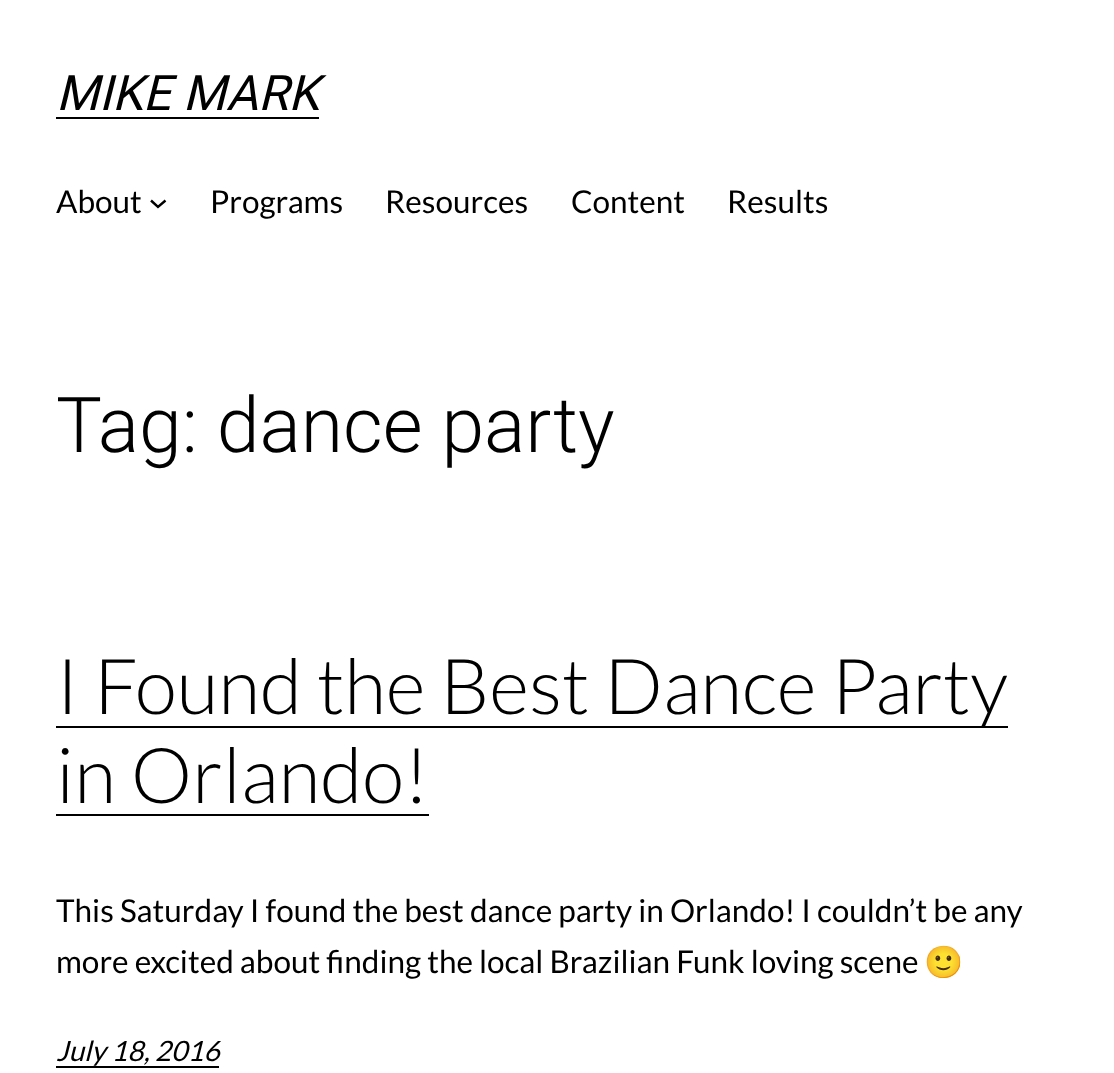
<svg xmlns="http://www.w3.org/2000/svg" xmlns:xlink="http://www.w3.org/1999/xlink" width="1114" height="1073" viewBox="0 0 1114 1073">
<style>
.cls-1{font:italic 49px Roboto;fill:#000000}
.cls-2{font:31.5px Lato;fill:#000000}
.cls-3{font:300 77px Roboto;fill:#000000}
.cls-4{font:300 77px Lato;fill:#000000}
.cls-5{font:31.5px Noto Color Emoji;fill:#000000}
.cls-6{font:italic 28px Lato;fill:#000000}
</style>
<rect width="100%" height="100%" fill="#ffffff"/>
<rect fill="#000000" x="56" y="117" width="263" height="2"/>
<path fill="none" stroke="#000000" stroke-width="2.4" d="M151 200.5L158 207L165.5 200.5"/>
<rect fill="#000000" x="56" y="726" width="952" height="2"/>
<rect fill="#000000" x="56" y="814" width="373" height="2"/>
<rect fill="#000000" x="56" y="1066" width="163" height="2"/>
<text class="cls-1" x="56" y="110">MIKE MARK</text>
<text class="cls-2" x="56" y="213">About</text>
<text class="cls-2" x="210" y="213">Programs</text>
<text class="cls-2" x="385" y="213">Resources</text>
<text class="cls-2" x="571" y="213">Content</text>
<text class="cls-2" x="727" y="213">Results</text>
<text class="cls-3" x="56" y="452">Tag: dance party</text>
<text class="cls-4"><tspan x="56" y="714">I Found the Best Dance Party</tspan><tspan x="56" y="803">in Orlando!</tspan></text>
<text class="cls-2"><tspan x="56" y="922">This Saturday I found the best dance party in Orlando! I couldn’t be any</tspan><tspan x="56" y="973">more excited about finding the local Brazilian Funk loving scene</tspan></text>
<text class="cls-5" x="924" y="973">🙂</text>
<text class="cls-6" x="56" y="1061">July 18, 2016</text>
</svg>
